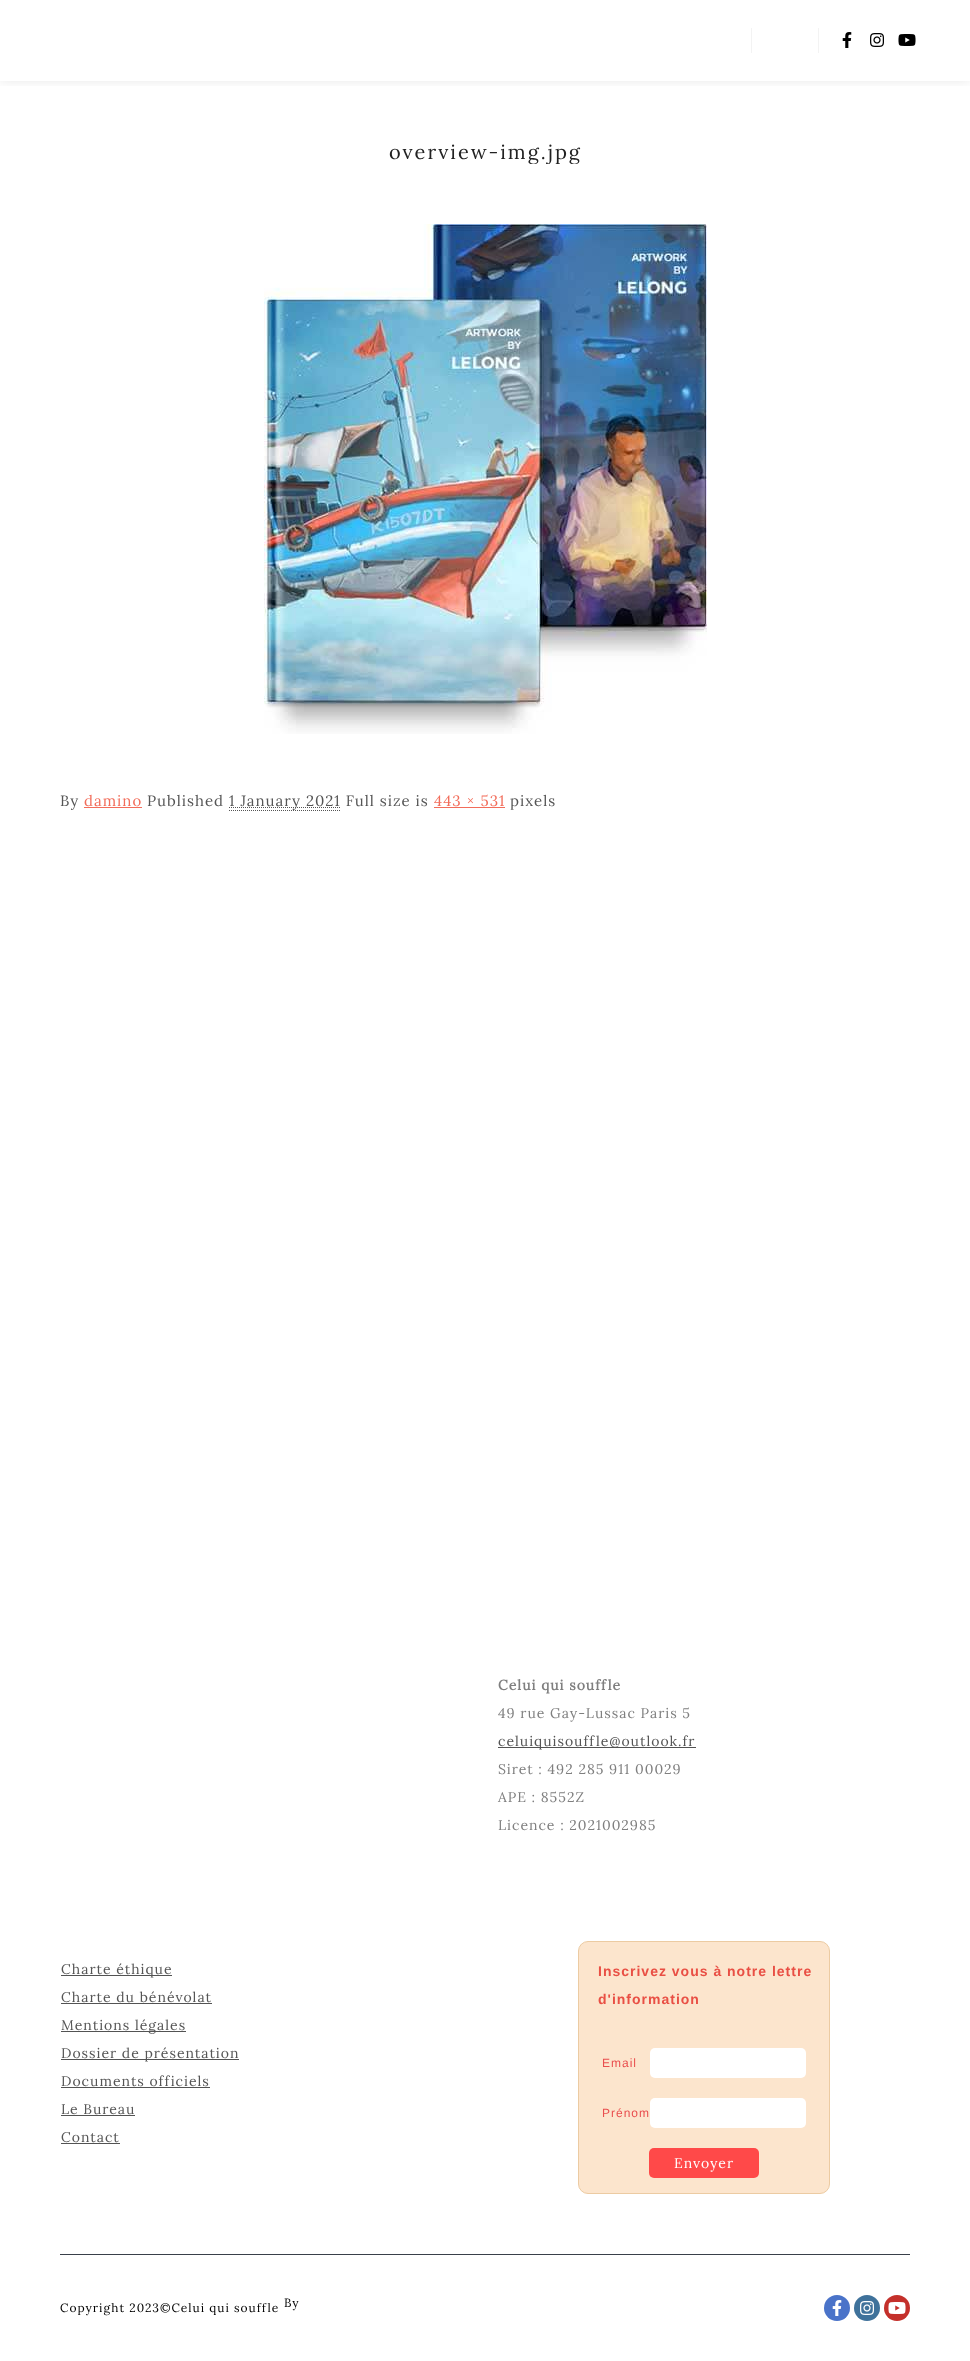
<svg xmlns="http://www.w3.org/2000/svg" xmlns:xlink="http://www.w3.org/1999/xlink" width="970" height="2361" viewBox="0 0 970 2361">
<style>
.cls-1{font:20px Lora;letter-spacing:2px;fill:#222222}
.cls-2{font:15px Lora;letter-spacing:1px;fill:#555555}
.cls-3{font:15px Lora;letter-spacing:1px;fill:#f26d5b}
.cls-4{font:bold 14px Lora;letter-spacing:1px;fill:#7f7f7f}
.cls-5{font:14px Lora;letter-spacing:1px;fill:#7f7f7f}
.cls-6{font:14px Lora;letter-spacing:1px;fill:#555555}
.cls-7{font:bold 14px Liberation Sans;letter-spacing:1px;fill:#e94f44}
.cls-8{font:12px Liberation Sans;letter-spacing:1px;fill:#e94f4f}
.cls-9{font:14px Lora;letter-spacing:1px;fill:#ffffff}
.cls-10{font:12px Lora;letter-spacing:1px;fill:#000000}
</style>
<defs>
<clipPath id="clip1"><rect x="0" y="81" width="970" height="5"/></clipPath>
<clipPath id="clip2"><rect x="60" y="140" width="850" height="24"/></clipPath>
</defs>
<rect width="100%" height="100%" fill="#ffffff"/>
<g clip-path="url(#clip1)">
<rect fill="#000000" fill-opacity="0.09" filter="blur(6px)" x="0" y="0" width="970" height="81"/>
</g>
<rect fill="#f3f3f3" x="751" y="28" width="1" height="25"/>
<rect fill="#f3f3f3" x="818" y="28" width="1" height="25"/>
<image xlink:href="image0.png" x="842" y="32" width="10" height="16"/>
<image xlink:href="image1.png" x="870" y="33" width="14" height="14"/>
<image xlink:href="image2.png" x="898" y="34" width="18" height="12"/>
<image xlink:href="image3.png" x="264" y="224" width="443" height="510"/>
<rect fill="#f26d5b" x="84" y="807" width="58" height="1"/>
<path fill="none" stroke="#555555" stroke-dasharray="1 1" d="M229 810.5H341"/>
<path fill="none" stroke="#555555" stroke-dasharray="1 1" d="M229 807.5H341"/>
<rect fill="#f26d5b" x="434" y="807" width="71" height="1"/>
<rect fill="#535353" x="498" y="1747" width="198" height="1"/>
<rect fill="#535353" x="61" y="1975" width="111" height="1"/>
<rect fill="#535353" x="61" y="2003" width="151" height="1"/>
<rect fill="#535353" x="61" y="2031" width="125" height="1"/>
<rect fill="#535353" x="61" y="2059" width="178" height="1"/>
<rect fill="#535353" x="61" y="2087" width="149" height="1"/>
<rect fill="#535353" x="61" y="2115" width="74" height="1"/>
<rect fill="#535353" x="61" y="2143" width="59" height="1"/>
<rect fill="#fce5cd" stroke="#eccba2" x="578.5" y="1941.5" width="251" height="252" rx="9.5"/>
<rect fill="#ffffff" x="650" y="2048" width="156" height="30" rx="5"/>
<rect fill="#ffffff" x="650" y="2098" width="156" height="30" rx="5"/>
<rect fill="#ff4949" x="649" y="2148" width="110" height="30" rx="5"/>
<rect fill="#39404a" x="60" y="2254" width="850" height="1"/>
<circle fill="#4a73c9" cx="837" cy="2308" r="13"/>
<image xlink:href="image4.png" x="832" y="2300" width="10" height="16"/>
<circle fill="#3f729b" cx="867" cy="2308" r="13"/>
<image xlink:href="image5.png" x="860" y="2301" width="14" height="14"/>
<circle fill="#c4302b" cx="897" cy="2308" r="13"/>
<image xlink:href="image6.png" x="888" y="2302" width="18" height="12"/>
<g clip-path="url(#clip2)">
<text class="cls-1" x="389" y="159">overview-img.jpg</text>
</g>
<text class="cls-2" x="60" y="806">By</text>
<text class="cls-3" x="84" y="806">damino</text>
<text class="cls-2" x="147" y="806">Published</text>
<text class="cls-2" x="229" y="806">1 January 2021 Full size is</text>
<text class="cls-3" x="434" y="806">443 × 531</text>
<text class="cls-2" x="510" y="806">pixels</text>
<text class="cls-4" x="498" y="1690">Celui qui souffle</text>
<text class="cls-5" x="498" y="1718">49 rue Gay-Lussac Paris 5</text>
<text class="cls-6" x="498" y="1746">celuiquisouffle@outlook.fr</text>
<text class="cls-5" x="498" y="1774">Siret : 492 285 911 00029</text>
<text class="cls-5" x="498" y="1802">APE : 8552Z</text>
<text class="cls-5" x="498" y="1830">Licence : 2021002985</text>
<text class="cls-6" x="61" y="1974">Charte éthique</text>
<text class="cls-6" x="61" y="2002">Charte du bénévolat</text>
<text class="cls-6" x="61" y="2030">Mentions légales</text>
<text class="cls-6" x="61" y="2058">Dossier de présentation</text>
<text class="cls-6" x="61" y="2086">Documents officiels</text>
<text class="cls-6" x="61" y="2114">Le Bureau</text>
<text class="cls-6" x="61" y="2142">Contact</text>
<text class="cls-7" x="598" y="1976">Inscrivez vous à notre lettre</text>
<text class="cls-7" x="598" y="2004">d'information</text>
<text class="cls-8" x="602" y="2067">Email</text>
<text class="cls-8" x="602" y="2117">Prénom</text>
<text class="cls-9" x="674" y="2168">Envoyer</text>
<text class="cls-10" x="60" y="2312">Copyright 2023©Celui qui souffle</text>
<text class="cls-10" x="284" y="2307">By</text>
</svg>
